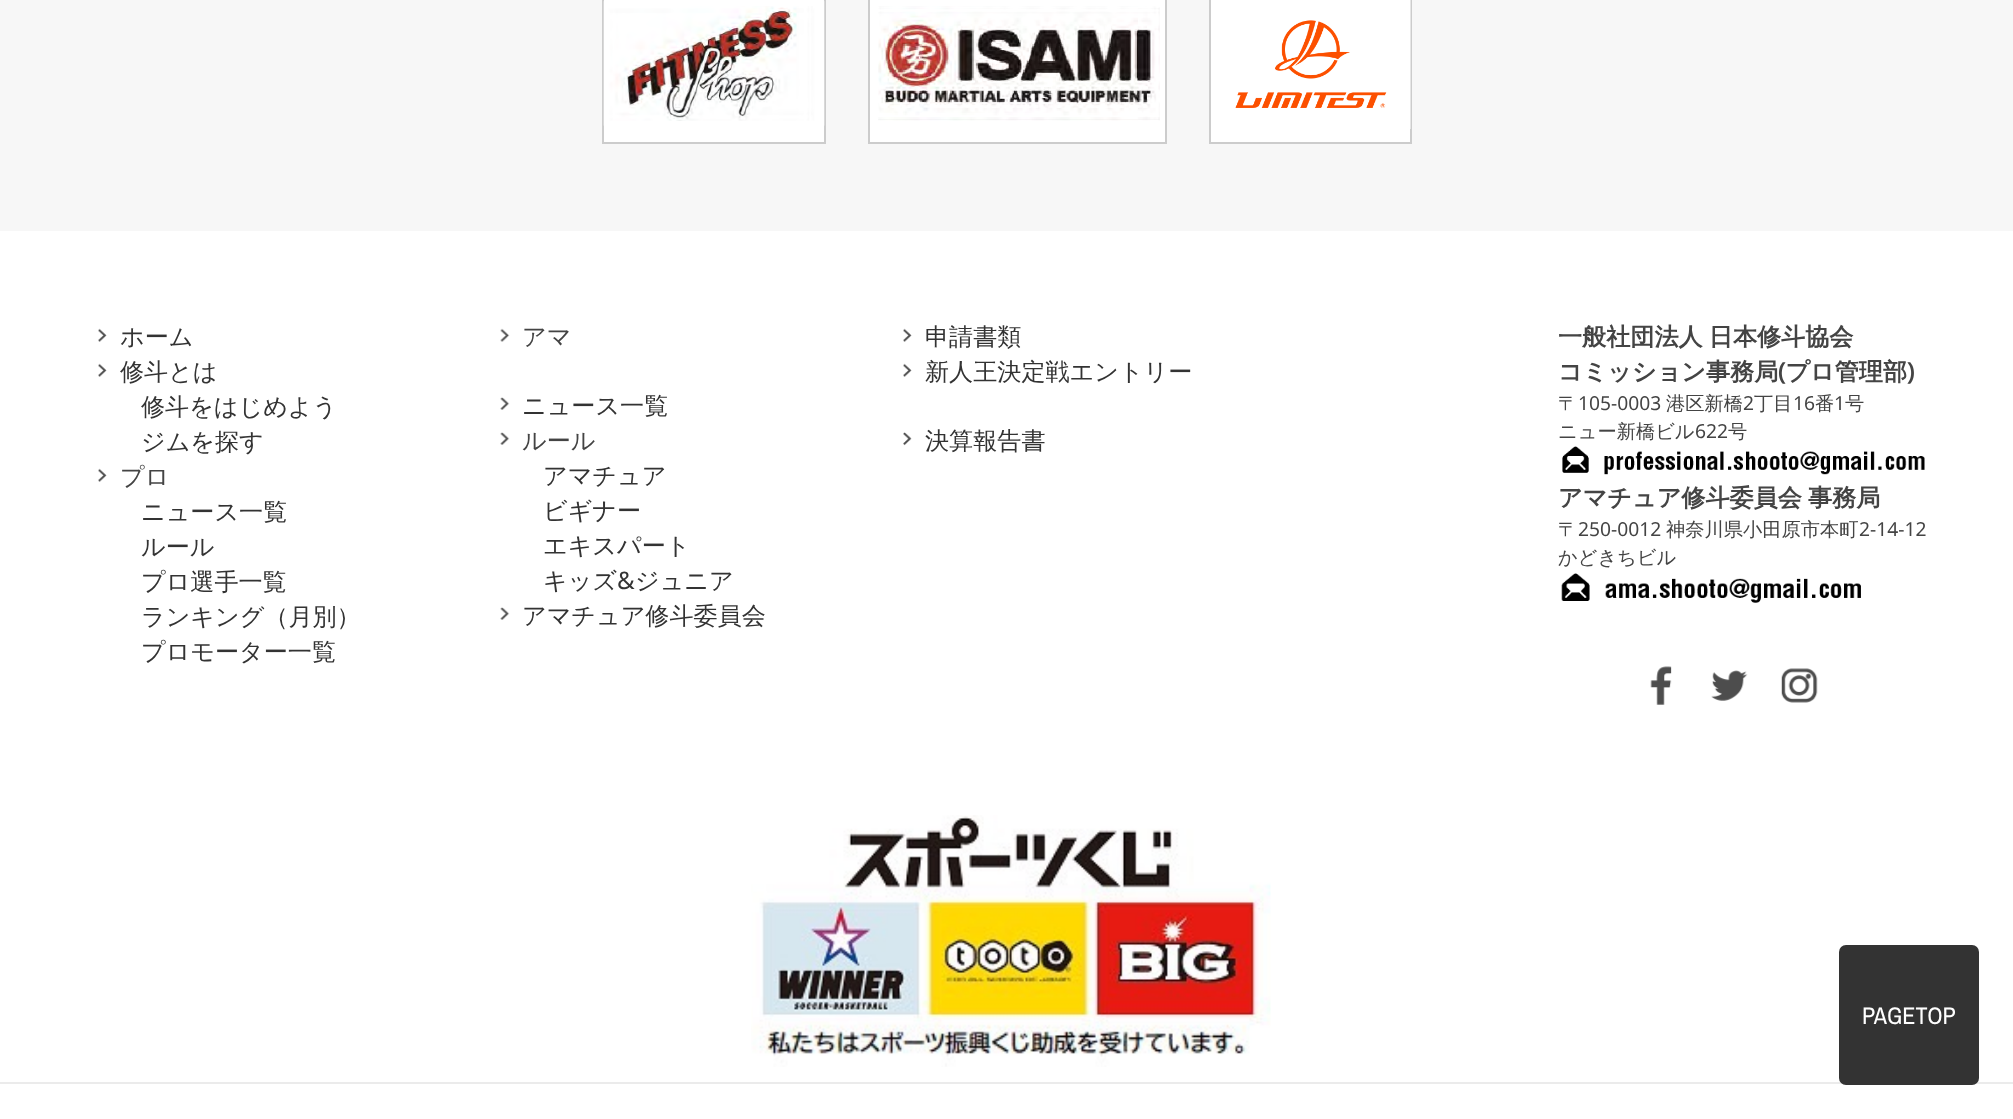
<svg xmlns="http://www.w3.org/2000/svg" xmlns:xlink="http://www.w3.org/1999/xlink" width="2013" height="1119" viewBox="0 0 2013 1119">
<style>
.cls-1{font:500 24.1px WenQuanYi Zen Hei;fill:#333333}
.cls-2{font:500 24.1px WenQuanYi Zen Hei;fill:#444444}
.cls-3{font:24.1px Noto Sans;fill:#333333}
.cls-4{font:bold 24.1px WenQuanYi Zen Hei;fill:#444444}
.cls-5{font:bold 24.1px Noto Sans;fill:#444444}
.cls-6{font:500 19.25px WenQuanYi Zen Hei;fill:#444444}
.cls-7{font:19.25px Noto Sans;fill:#444444}
.cls-8{font:24.1px Archivo Narrow;fill:#ffffff}
</style>
<rect width="100%" height="100%" fill="#ffffff"/>
<rect fill="#f7f7f7" x="0" y="0" width="2013" height="231"/>
<rect fill="#ffffff" stroke="#cccccc" stroke-width="2" x="603" y="-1" width="222" height="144"/>
<image xlink:href="image0.png" x="603" y="1" width="222" height="125"/>
<rect fill="#ffffff" stroke="#cccccc" stroke-width="2" x="869" y="-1" width="297" height="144"/>
<image xlink:href="image1.png" x="878" y="6" width="282" height="115"/>
<rect fill="#ffffff" stroke="#cccccc" stroke-width="2" x="1210" y="-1" width="201" height="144"/>
<image xlink:href="image2.png" x="1235" y="0" width="176" height="129"/>
<image xlink:href="image3.png" x="98" y="328" width="9" height="14"/>
<image xlink:href="image3.png" x="98" y="363" width="9" height="14"/>
<image xlink:href="image3.png" x="98" y="468" width="9" height="14"/>
<image xlink:href="image4.png" x="500" y="328" width="10" height="14"/>
<image xlink:href="image5.png" x="500" y="397" width="10" height="13"/>
<image xlink:href="image5.png" x="500" y="432" width="10" height="13"/>
<image xlink:href="image5.png" x="500" y="607" width="10" height="13"/>
<image xlink:href="image3.png" x="903" y="328" width="9" height="14"/>
<image xlink:href="image3.png" x="903" y="363" width="9" height="14"/>
<image xlink:href="image6.png" x="903" y="432" width="9" height="14"/>
<image xlink:href="image7.png" x="1562" y="446" width="363" height="29"/>
<image xlink:href="image8.png" x="1561" y="573" width="300" height="30"/>
<image xlink:href="image9.png" x="1650" y="666" width="22" height="39"/>
<image xlink:href="image10.png" x="1711" y="670" width="37" height="31"/>
<image xlink:href="image11.png" x="1781" y="668" width="37" height="35"/>
<rect fill="#ebebeb" x="0" y="1082" width="2013" height="2"/>
<rect fill="#333333" x="1839" y="945" width="140" height="140" rx="7"/>
<image xlink:href="image12.png" x="751" y="815" width="520" height="252"/>
<text class="cls-1"><tspan x="120" y="345">ホーム</tspan><tspan x="120" y="380">修斗とは</tspan></text>
<text class="cls-1"><tspan x="141" y="415">修斗をはじめよう</tspan><tspan x="141" y="450">ジムを探す</tspan></text>
<text class="cls-2" x="120" y="485">プロ</text>
<text class="cls-1"><tspan x="141" y="520">ニュース一覧</tspan><tspan x="141" y="555">ルール</tspan><tspan x="141" y="590">プロ選手一覧</tspan><tspan x="141" y="625">ランキング（月別）</tspan><tspan x="141" y="660">プロモーター一覧</tspan></text>
<text class="cls-2" x="522" y="345">アマ</text>
<text class="cls-1" x="522" y="414">ニュース一覧</text>
<text class="cls-2" x="522" y="449">ルール</text>
<text class="cls-1"><tspan x="543" y="484">アマチュア</tspan><tspan x="543" y="519">ビギナー</tspan><tspan x="543" y="554">エキスパート</tspan><tspan x="543" y="589">キッズ</tspan></text>
<text class="cls-3" x="617" y="589">&amp;</text>
<text class="cls-1" x="635" y="589">ジュニア</text>
<text class="cls-1" x="522" y="624">アマチュア修斗委員会</text>
<text class="cls-1"><tspan x="925" y="345">申請書類</tspan><tspan x="925" y="380">新人王決定戦エントリー</tspan></text>
<text class="cls-1" x="925" y="449">決算報告書</text>
<text class="cls-4"><tspan x="1558" y="345" word-spacing="-1">一般社団法人 日本修斗協会</tspan><tspan x="1558" y="380">コミッション事務局 プロ管理部</tspan></text>
<text class="cls-5" x="1778" y="380">(</text>
<text class="cls-5" x="1907" y="380">)</text>
<text class="cls-6" x="1558" y="410">〒</text>
<text class="cls-7" x="1578" y="410">105-0003</text>
<text class="cls-6" x="1666" y="410">港区新橋</text>
<text class="cls-7" x="1743" y="410">2</text>
<text class="cls-6" x="1754" y="410">丁目</text>
<text class="cls-7" x="1793" y="410">16</text>
<text class="cls-6" x="1815" y="410">番</text>
<text class="cls-7" x="1834" y="410">1</text>
<text class="cls-6" x="1845" y="410">号</text>
<text class="cls-6" x="1558" y="438">ニュー新橋ビル</text>
<text class="cls-7" x="1695" y="438">622</text>
<text class="cls-6" x="1728" y="438">号</text>
<text class="cls-4" x="1558" y="506" word-spacing="-1">アマチュア修斗委員会 事務局</text>
<text class="cls-6" x="1558" y="536">〒</text>
<text class="cls-7" x="1578" y="536">250-0012</text>
<text class="cls-6" x="1666" y="536">神奈川県小田原市本町</text>
<text class="cls-7" x="1859" y="536">2-14-12</text>
<text class="cls-6" x="1558" y="564">かどきちビル</text>
<text class="cls-8" x="1862" y="1024">PAGETOP</text>
</svg>
